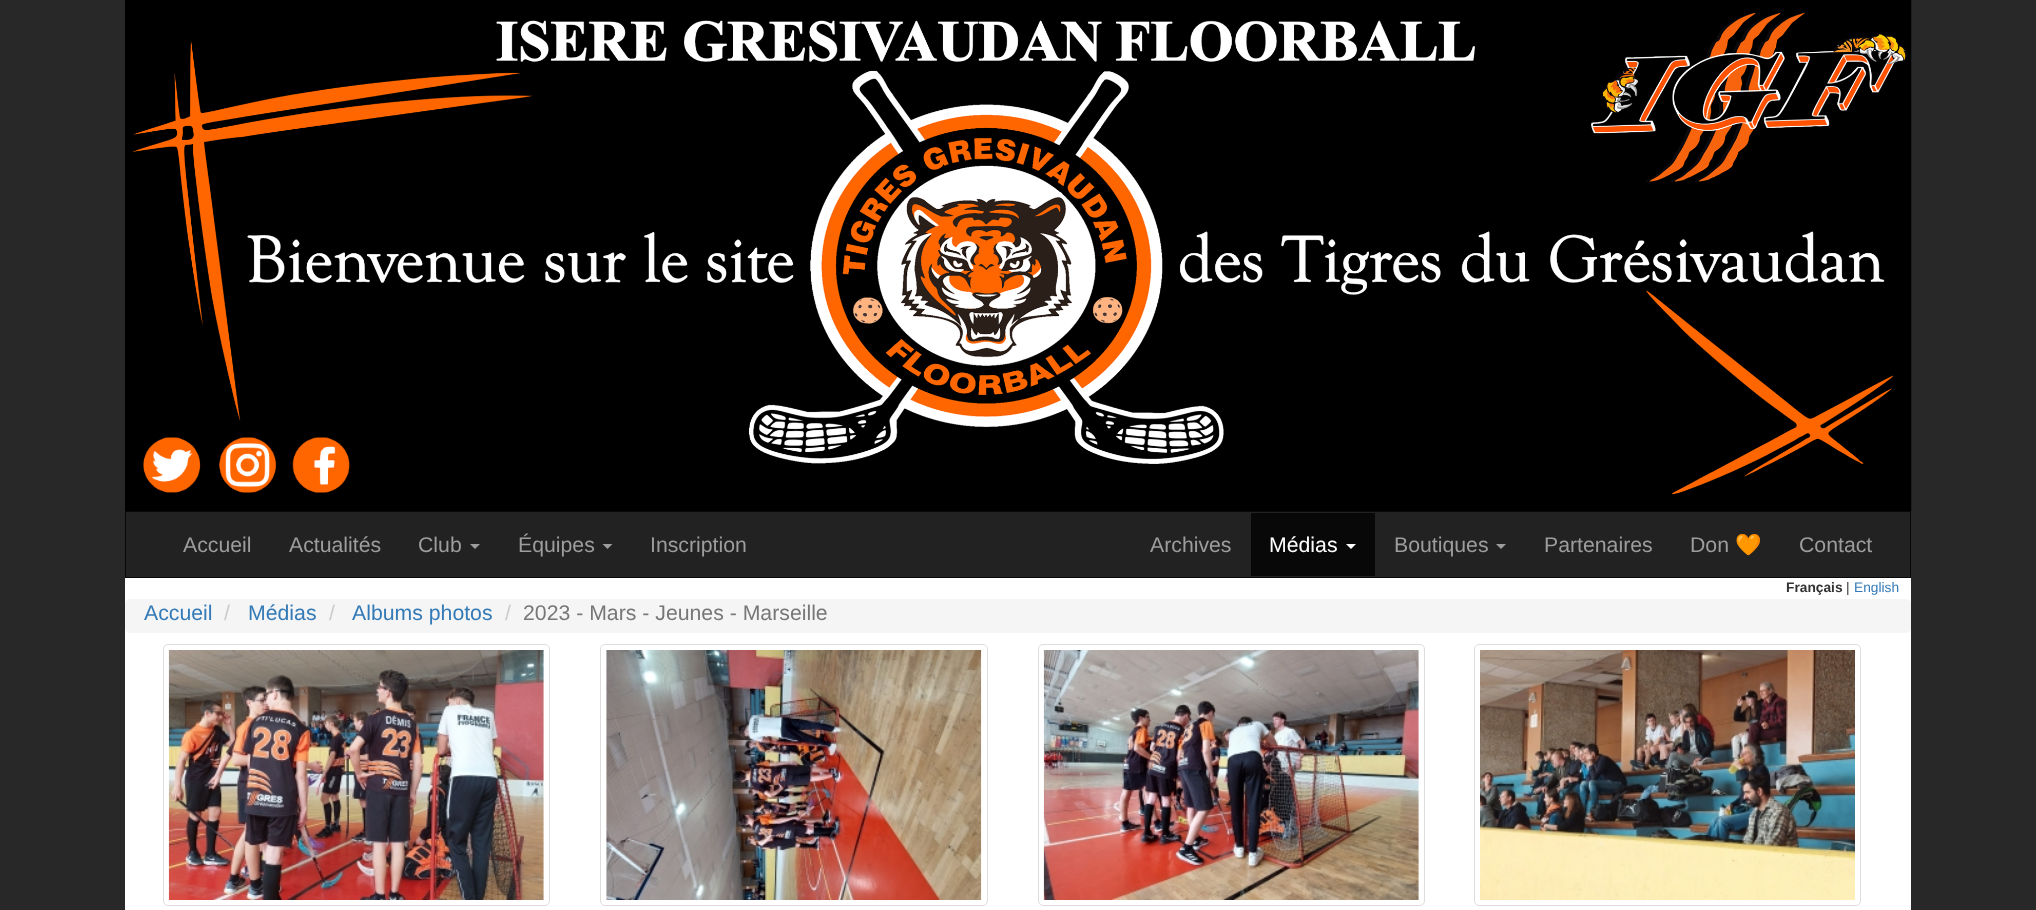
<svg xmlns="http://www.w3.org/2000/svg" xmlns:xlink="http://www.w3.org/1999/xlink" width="2036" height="910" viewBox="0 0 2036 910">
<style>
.cls-1{font:21.25px Liberation Sans;fill:#9d9d9d}
.cls-2{font:21.25px Liberation Sans;fill:#ffffff}
.cls-3{font:21.25px Noto Color Emoji;fill:#9d9d9d}
.cls-4{font:bold 13.75px Liberation Sans;fill:#333333}
.cls-5{font:13.75px Liberation Sans;fill:#333333}
.cls-6{font:13.75px Liberation Sans;fill:#337ab7}
.cls-7{font:21.25px Liberation Sans;fill:#337ab7}
.cls-8{font:21.25px Liberation Sans;fill:#cccccc}
.cls-9{font:21.25px Liberation Sans;fill:#777777}
</style>
<rect width="100%" height="100%" fill="#282828"/>
<rect fill="#ffffff" x="125" y="578" width="1786" height="332"/>
<image xlink:href="image0.png" x="125" y="0" width="1787" height="512"/>
<image xlink:href="image1.png" x="143" y="437" width="58" height="56"/>
<image xlink:href="image2.png" x="219" y="437" width="58" height="56"/>
<image xlink:href="image3.png" x="292" y="437" width="58" height="56"/>
<rect fill="#222222" stroke="#080808" x="125.5" y="511.5" width="1785" height="66"/>
<path fill="#9d9d9d" d="M470 544H480L475 549Z"/>
<path fill="#9d9d9d" d="M602.5 544H612.5L607.5 549Z"/>
<rect fill="#080808" x="1251" y="513" width="124" height="63"/>
<path fill="#ffffff" d="M1346 544H1356L1351 549Z"/>
<path fill="#9d9d9d" d="M1496 544H1506L1501 549Z"/>
<rect fill="#f5f5f5" x="125" y="599" width="1786" height="34" rx="5"/>
<rect fill="none" stroke="#dddddd" x="163.5" y="644.5" width="386" height="261" rx="4.5"/>
<image xlink:href="image4.png" x="168" y="650" width="376" height="250"/>
<rect fill="none" stroke="#dddddd" x="600.5" y="644.5" width="387" height="261" rx="4.5"/>
<image xlink:href="image5.png" x="606" y="650" width="376" height="250"/>
<rect fill="none" stroke="#dddddd" x="1038.5" y="644.5" width="386" height="261" rx="4.5"/>
<image xlink:href="image6.png" x="1043" y="650" width="376" height="250"/>
<rect fill="none" stroke="#dddddd" x="1474.5" y="644.5" width="386" height="261" rx="4.5"/>
<image xlink:href="image7.png" x="1480" y="650" width="375" height="250"/>
<text class="cls-1" x="183" y="552">Accueil</text>
<text class="cls-1" x="289" y="552">Actualités</text>
<text class="cls-1" x="418" y="552">Club</text>
<text class="cls-1" x="518" y="552">Équipes</text>
<text class="cls-1" x="650" y="552">Inscription</text>
<text class="cls-1" x="1150" y="552">Archives</text>
<text class="cls-2" x="1269" y="552">Médias</text>
<text class="cls-1" x="1394" y="552">Boutiques</text>
<text class="cls-1" x="1544" y="552">Partenaires</text>
<text class="cls-1" x="1690" y="552">Don</text>
<text class="cls-3" x="1735" y="552">🧡</text>
<text class="cls-1" x="1799" y="552">Contact</text>
<text class="cls-4" x="1786" y="592">Français</text>
<text class="cls-5" x="1846" y="592">|</text>
<text class="cls-6" x="1854" y="592">English</text>
<text class="cls-7" x="144" y="620">Accueil</text>
<text class="cls-8" x="224" y="620">/</text>
<text class="cls-7" x="248" y="620">Médias</text>
<text class="cls-8" x="329" y="620">/</text>
<text class="cls-7" x="352" y="620">Albums photos</text>
<text class="cls-8" x="505" y="620">/</text>
<text class="cls-9" x="523" y="620">2023 - Mars - Jeunes - Marseille</text>
</svg>
